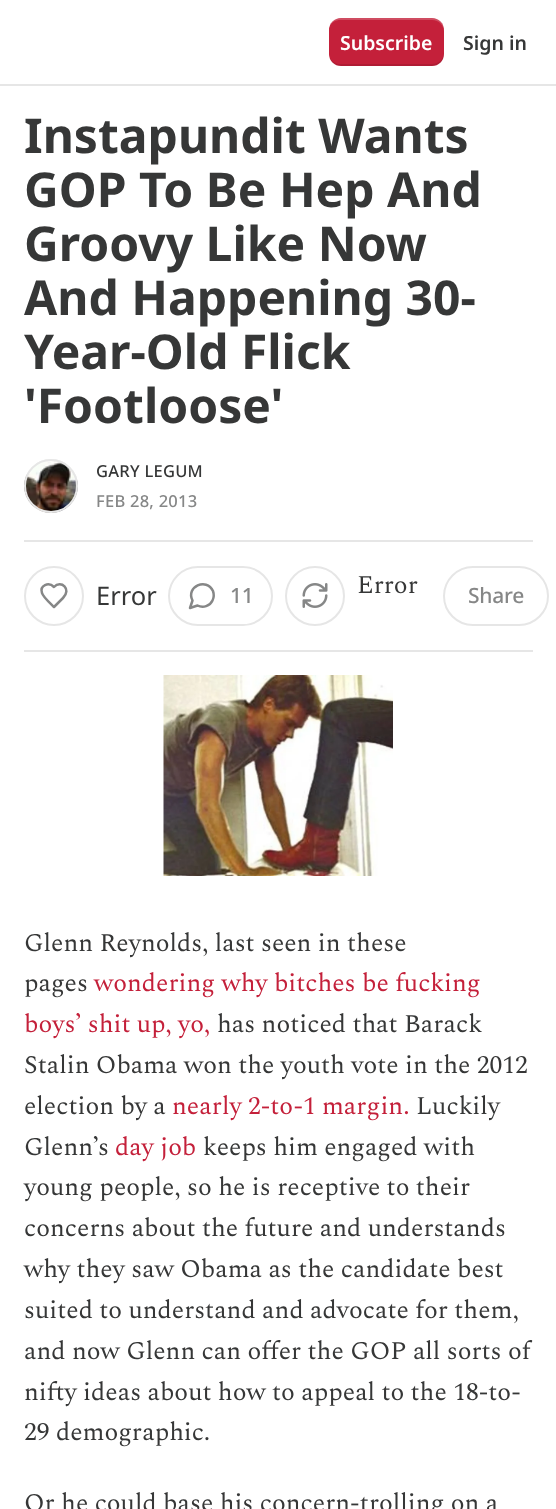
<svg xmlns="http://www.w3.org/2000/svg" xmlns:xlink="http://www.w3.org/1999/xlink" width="556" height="1509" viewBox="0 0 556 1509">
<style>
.cls-1{font:600 19.5px Noto Sans;fill:#ffffff}
.cls-2{font:600 19.5px Noto Sans;fill:#363737}
.cls-3{font:bold 48px Noto Sans;fill:#363737}
.cls-4{font:500 16.5px Noto Sans;letter-spacing:0.25px;fill:#363737}
.cls-5{font:500 16.5px Noto Sans;letter-spacing:0.25px;fill:#868787}
.cls-6{font:25.5px Noto Sans;fill:#363737}
.cls-7{font:500 21px Noto Sans;letter-spacing:-0.25px;fill:#868787}
.cls-8{font:25.5px Spectral;fill:#363737}
.cls-9{font:25.5px Spectral;fill:#c4203a}
</style>
<rect width="100%" height="100%" fill="#ffffff"/>
<rect fill="#e6e6e6" x="0" y="84" width="556" height="2"/>
<rect fill="#c4203a" x="329" y="18" width="115" height="48" rx="12"/>
<path fill="#000000" fill-opacity="0.1" d="M330 58C331 63 336 66 341 66H432C439 66 444 61 444 54V52C444 59 439 64 432 64H340C336 64 332 62 330 58Z"/>
<path fill="#ffffff" fill-opacity="0.2" d="M340 20H432C439 20 444 25 444 32V30C444 23 439 18 432 18H341C336 18 331 21 330 26C332 22 336 20 340 20Z"/>
<circle fill="none" stroke="#e6e6e6" stroke-width="2" cx="51" cy="486" r="26"/>
<image xlink:href="image0.png" x="24" y="459" width="54" height="54"/>
<circle fill="none" stroke="#e6e6e6" stroke-width="2" cx="51" cy="486" r="26"/>
<rect fill="#e6e6e6" x="24" y="540" width="509" height="2"/>
<rect fill="#e6e6e6" x="24" y="650" width="509" height="2"/>
<circle fill="none" stroke="#e6e6e6" stroke-width="2" cx="54" cy="596" r="29"/>
<path fill="none" stroke="#868787" stroke-width="2.5" stroke-linecap="round" stroke-linejoin="round" d="M63 598C72 589 61 579.5 54 587C48.5 581.5 39.5 585.5 42 593C43 597 51 604 54 607Z"/>
<rect fill="none" stroke="#e6e6e6" stroke-width="2" x="169" y="567" width="103" height="58" rx="29"/>
<path fill="none" stroke="#868787" stroke-width="2.5" stroke-linecap="round" stroke-linejoin="round" d="M197.5 605.5C203 608.5 210 606 212.5 600.5C214 597.5 214 594 213 591C206.5 577 185.5 587 192.5 600.5L190 608Z"/>
<circle fill="none" stroke="#e6e6e6" stroke-width="2" cx="315" cy="596" r="29"/>
<image xlink:href="image1.png" x="302" y="583" width="26" height="25"/>
<rect fill="none" stroke="#e6e6e6" stroke-width="2" x="444" y="567" width="104" height="58" rx="29"/>
<image xlink:href="image2.png" x="163" y="675" width="230" height="201"/>
<text class="cls-1" x="340" y="50">Subscribe</text>
<text class="cls-2" x="463" y="50">Sign in</text>
<text class="cls-3"><tspan x="24" y="153">Instapundit Wants</tspan><tspan x="24" y="207">GOP To Be Hep And</tspan><tspan x="24" y="261">Groovy Like Now</tspan><tspan x="24" y="315">And Happening 30-</tspan><tspan x="24" y="369">Year-Old Flick</tspan><tspan x="24" y="423">'Footloose'</tspan></text>
<text class="cls-4" x="96" y="477">GARY LEGUM</text>
<text class="cls-5" x="96" y="507">FEB 28, 2013</text>
<text class="cls-6" x="96" y="605">Error</text>
<text class="cls-7" x="230" y="603">11</text>
<text class="cls-8" x="357" y="593">Error</text>
<text class="cls-7" x="468" y="603">Share</text>
<text class="cls-8"><tspan x="24" y="951">Glenn Reynolds, last seen in these</tspan><tspan x="24" y="991">pages</tspan></text>
<text class="cls-9" x="94" y="991">wondering why bitches be fucking</text>
<text class="cls-9" x="24" y="1032">boys’ shit up, yo,</text>
<text class="cls-8" x="217" y="1032">has noticed that Barack</text>
<text class="cls-8"><tspan x="24" y="1073">Stalin Obama won the youth vote in the 2012</tspan><tspan x="24" y="1114">election by a</tspan></text>
<text class="cls-9" x="172" y="1114">nearly 2-to-1 margin.</text>
<text class="cls-8" x="416" y="1114">Luckily</text>
<text class="cls-8" x="24" y="1155">Glenn’s</text>
<text class="cls-9" x="115" y="1155">day job</text>
<text class="cls-8" x="203" y="1155">keeps him engaged with</text>
<text class="cls-8"><tspan x="24" y="1195">young people, so he is receptive to their</tspan><tspan x="24" y="1236">concerns about the future and understands</tspan><tspan x="24" y="1277">why they saw Obama as the candidate best</tspan><tspan x="24" y="1318">suited to understand and advocate for them,</tspan><tspan x="24" y="1359">and now Glenn can offer the GOP all sorts of</tspan><tspan x="24" y="1400">nifty ideas about how to appeal to the 18-to-</tspan><tspan x="24" y="1440">29 demographic.</tspan></text>
<text class="cls-8" x="24" y="1511">Or he could base his concern-trolling on a</text>
</svg>
